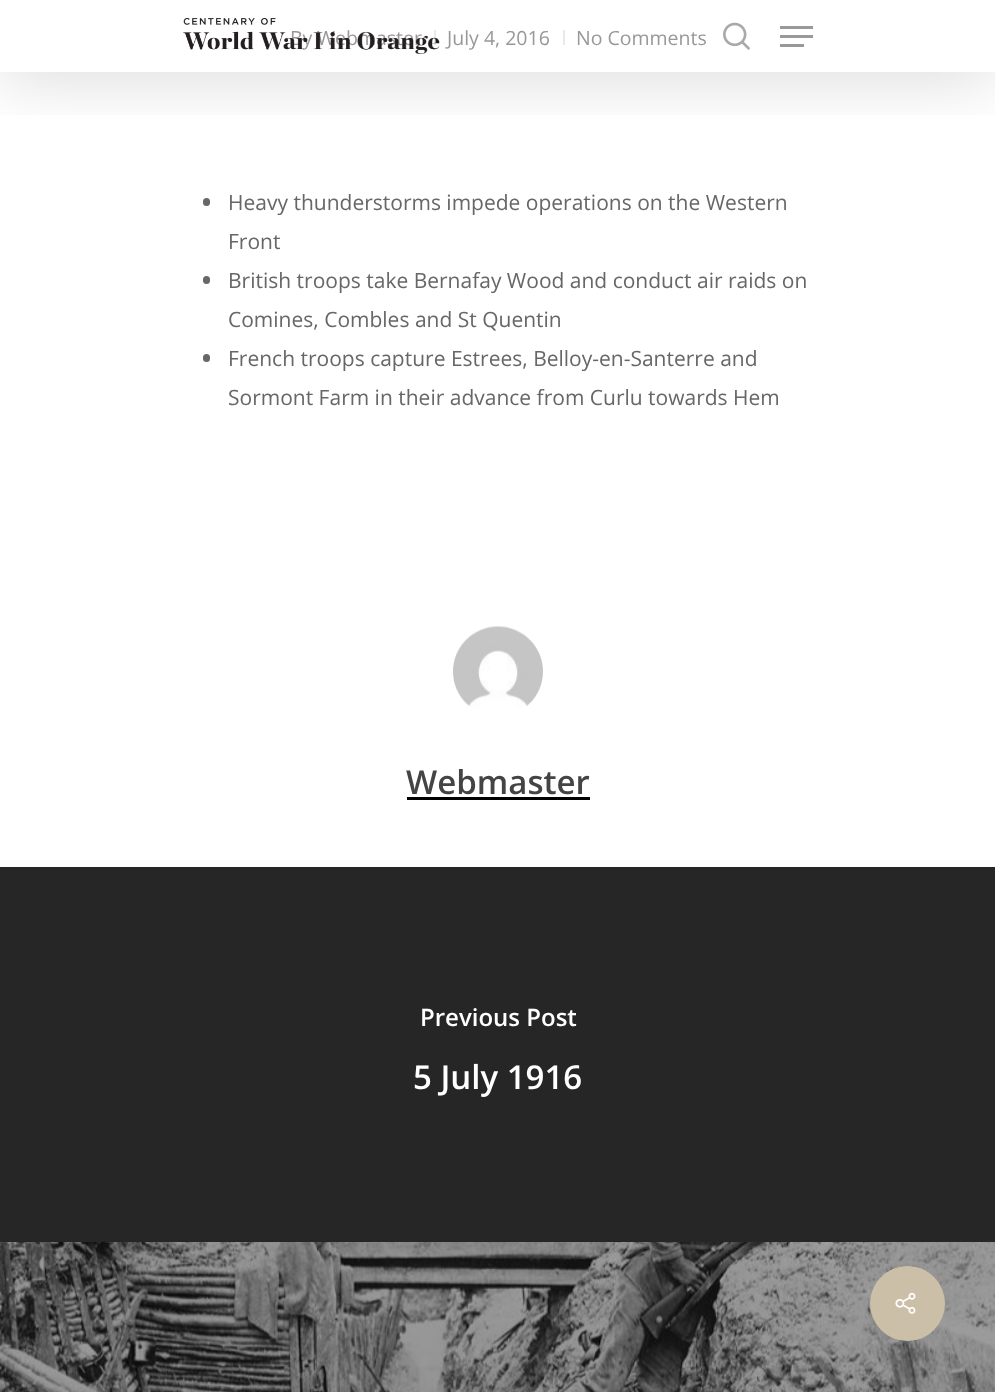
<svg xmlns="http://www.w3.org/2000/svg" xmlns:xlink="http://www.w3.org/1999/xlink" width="995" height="1392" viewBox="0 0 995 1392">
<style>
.cls-1{font:19.5px Open Sans;fill:#989898}
.cls-2{font:21px Open Sans;fill:#676767}
.cls-3{font:600 33px Open Sans;fill:#444444}
.cls-4{font:600 24px Open Sans;fill:#ffffff}
.cls-5{font:600 33px Open Sans;fill:#ffffff}
</style>
<defs>
<clipPath id="clip1"><rect x="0" y="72" width="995" height="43"/></clipPath>
</defs>
<rect width="100%" height="100%" fill="#ffffff"/>
<rect fill="#e9e9e9" x="434" y="30" width="2" height="15"/>
<rect fill="#e9e9e9" x="563" y="30" width="2" height="15"/>
<g clip-path="url(#clip1)">
<rect fill="#000000" fill-opacity="0.15" filter="blur(34px)" x="0" y="5" width="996" height="72"/>
</g>
<image xlink:href="image1.png" x="723" y="22" width="27" height="28"/>
<rect fill="#999999" x="780" y="26" width="33" height="3"/>
<rect fill="#999999" x="780" y="44" width="24" height="3"/>
<rect fill="#999999" x="780" y="35" width="33" height="3"/>
<rect fill="#676767" x="203" y="198" width="7" height="8" rx="3.5"/>
<rect fill="#676767" x="203" y="276" width="7" height="8" rx="3.5"/>
<rect fill="#676767" x="203" y="354" width="7" height="8" rx="3.5"/>
<image xlink:href="image2.png" x="453" y="626" width="90" height="81"/>
<rect fill="#000000" x="407" y="797" width="183" height="3"/>
<rect fill="#262626" x="0" y="867" width="995" height="375"/>
<image xlink:href="image3.png" x="0" y="1242" width="995" height="150"/>
<circle fill="#ccbfa7" cx="907.5" cy="1303.5" r="37.5"/>
<image xlink:href="image4.png" x="895" y="1292" width="21" height="22"/>
<text class="cls-1" x="290" y="45">By</text>
<text class="cls-1" x="317" y="45">Webmaster</text>
<image xlink:href="image0.png" x="183" y="18" width="257" height="36"/>
<text class="cls-1" x="447" y="45">July 4, 2016</text>
<text class="cls-1" x="576" y="45">No Comments</text>
<text class="cls-2"><tspan x="228" y="210">Heavy thunderstorms impede operations on the Western</tspan><tspan x="228" y="249">Front</tspan><tspan x="228" y="288">British troops take Bernafay Wood and conduct air raids on</tspan><tspan x="228" y="327">Comines, Combles and St Quentin</tspan><tspan x="228" y="366">French troops capture Estrees, Belloy-en-Santerre and</tspan><tspan x="228" y="405">Sormont Farm in their advance from Curlu towards Hem</tspan></text>
<text class="cls-3" x="406" y="794">Webmaster</text>
<text class="cls-4" x="420" y="1026">Previous Post</text>
<text class="cls-5" x="413" y="1089">5 July 1916</text>
</svg>
